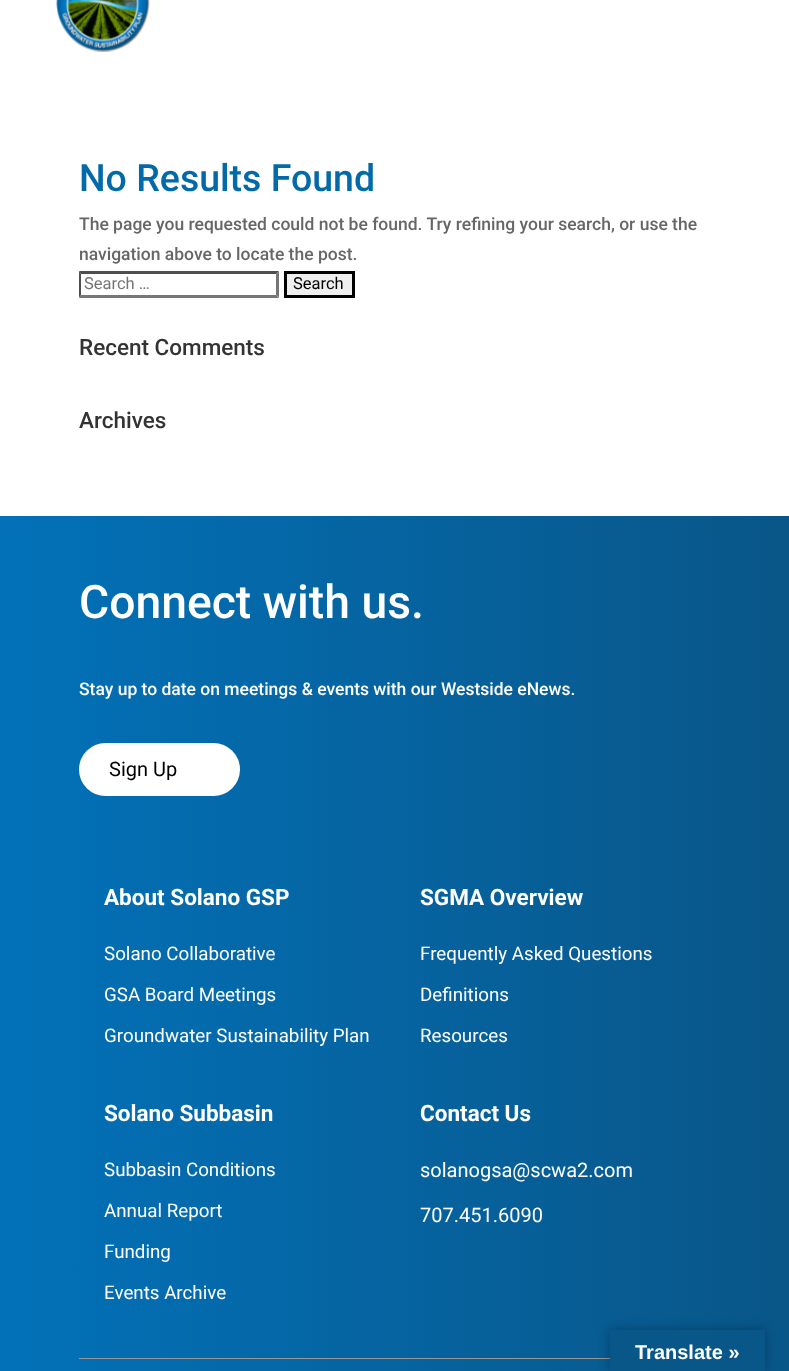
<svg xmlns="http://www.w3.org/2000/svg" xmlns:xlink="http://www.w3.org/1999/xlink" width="789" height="1371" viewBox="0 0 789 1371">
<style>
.cls-1{font:500 37.5px Roboto;fill:#036aa9}
.cls-2{font:500 17.5px Roboto;fill:#666666}
.cls-3{font:16.5px Roboto;fill:#757575}
.cls-4{font:16.5px Roboto;fill:#000000}
.cls-5{font:500 22.5px Roboto;fill:#333333}
.cls-6{font:500 46.25px Roboto;fill:#ffffff}
.cls-7{font:500 17.5px Roboto;fill:#ffffff}
.cls-8{font:20px Roboto;fill:#000000}
.cls-9{font:bold 22.5px Roboto;fill:#ffffff}
.cls-10{font:18.75px Roboto;fill:#ffffff}
.cls-11{font:20px Roboto;fill:#ffffff}
.cls-12{font:bold 20px Liberation Sans;fill:#ffffff}
</style>
<defs>
<linearGradient id="g1" gradientUnits="userSpaceOnUse" x1="0" y1="1023" x2="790" y2="1023"><stop offset="0" stop-color="#0271b8"/><stop offset="1" stop-color="#095688"/></linearGradient>
</defs>
<rect width="100%" height="100%" fill="#ffffff"/>
<image xlink:href="image0.png" x="56" y="0" width="94" height="52"/>
<path fill="#4f4f4f" d="M79 271H279L276 274H81Z"/>
<path fill="#767676" d="M279 271V297.5L276 295V274Z"/>
<path fill="#767676" d="M279 298H79L81 295H276Z"/>
<path fill="#4f4f4f" d="M79 297.5V271L81 274V295Z"/>
<rect fill="#efefef" stroke="#000000" stroke-width="3" x="285.5" y="272.5" width="68" height="24"/>
<rect fill="url(#g1)" x="0" y="516" width="789" height="855"/>
<rect fill="#ffffff" x="79" y="743" width="161" height="53" rx="26.5"/>
<rect fill="#979797" x="79" y="1358" width="531" height="1"/>
<rect fill="#000000" fill-opacity="0.3" filter="blur(5.5px)" x="610" y="1330" width="155" height="41"/>
<rect fill="#095688" x="610" y="1330" width="155" height="41"/>
<text class="cls-1" x="79" y="191">No Results Found</text>
<text class="cls-2"><tspan x="79" y="230">The page you requested could not be found. Try refining your search, or use the</tspan><tspan x="79" y="260">navigation above to locate the post.</tspan></text>
<text class="cls-3" x="84" y="289">Search …</text>
<text class="cls-4" x="293" y="289">Search</text>
<text class="cls-5" x="79" y="355">Recent Comments</text>
<text class="cls-5" x="79" y="428">Archives</text>
<text class="cls-6" x="79" y="618">Connect with us.</text>
<text class="cls-7" x="79" y="695">Stay up to date on meetings &amp; events with our Westside eNews.</text>
<text class="cls-8" x="109" y="776">Sign Up</text>
<text class="cls-9" x="104" y="905">About Solano GSP</text>
<text class="cls-10" x="104" y="960">Solano Collaborative</text>
<text class="cls-10" x="104" y="1001">GSA Board Meetings</text>
<text class="cls-10" x="104" y="1042">Groundwater Sustainability Plan</text>
<text class="cls-9" x="420" y="905">SGMA Overview</text>
<text class="cls-10" x="420" y="960">Frequently Asked Questions</text>
<text class="cls-10" x="420" y="1001">Definitions</text>
<text class="cls-10" x="420" y="1042">Resources</text>
<text class="cls-9" x="104" y="1121">Solano Subbasin</text>
<text class="cls-10" x="104" y="1176">Subbasin Conditions</text>
<text class="cls-10" x="104" y="1217">Annual Report</text>
<text class="cls-10" x="104" y="1258">Funding</text>
<text class="cls-10" x="104" y="1299">Events Archive</text>
<text class="cls-9" x="420" y="1121">Contact Us</text>
<text class="cls-11" x="420" y="1177">solanogsa@scwa2.com</text>
<text class="cls-11" x="420" y="1222">707.451.6090</text>
<text class="cls-12" x="635" y="1359">Translate »</text>
</svg>
